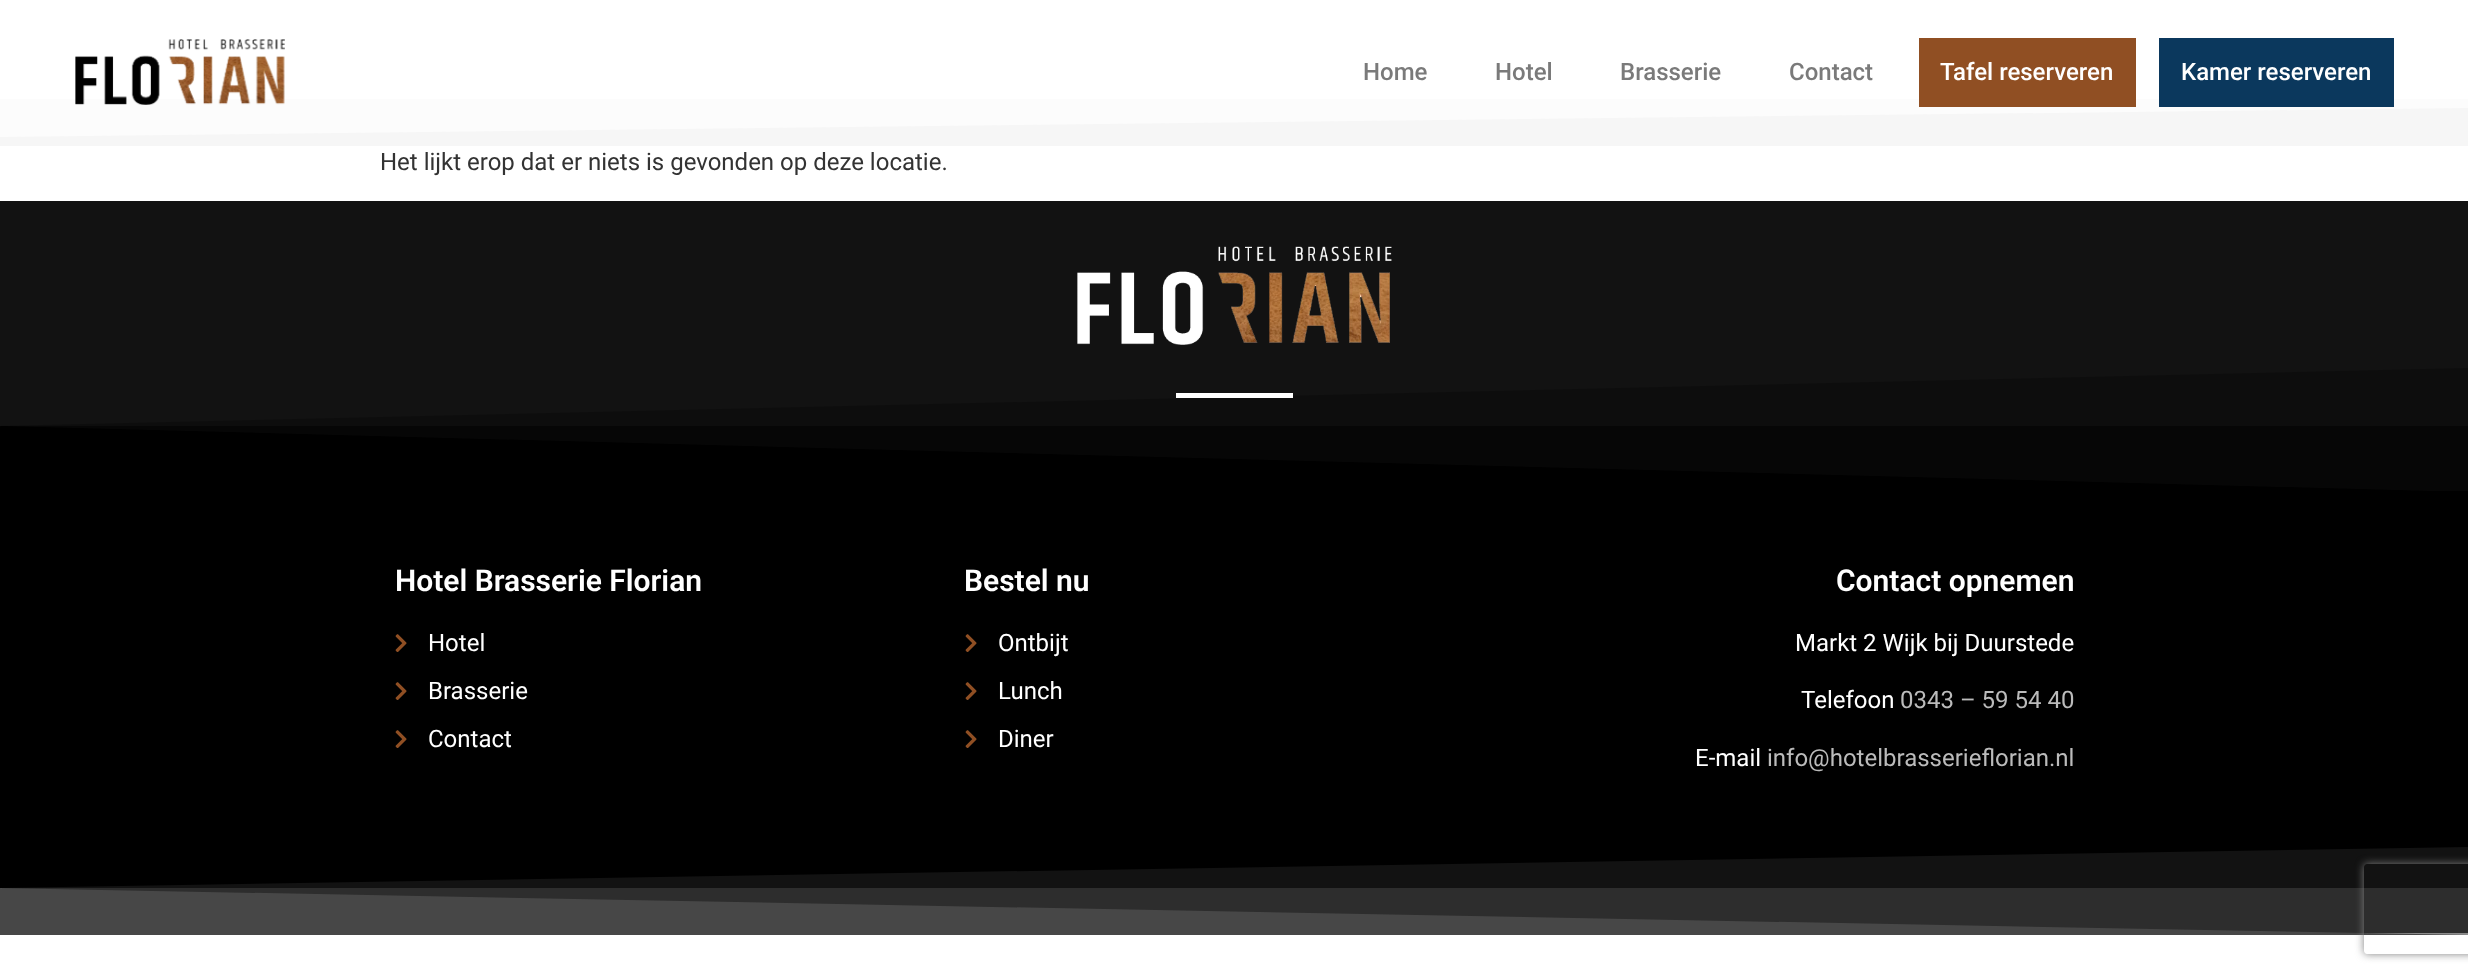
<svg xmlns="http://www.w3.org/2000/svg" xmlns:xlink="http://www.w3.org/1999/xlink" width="2468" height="974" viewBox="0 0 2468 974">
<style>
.cls-1{font:500 24px Roboto;fill:#7a7a7a}
.cls-2{font:500 24px Roboto;fill:#ffffff}
.cls-3{font:24px Roboto;fill:#333333}
.cls-4{font:600 30px Roboto;fill:#ffffff}
.cls-5{font:24px Roboto;fill:#ffffff}
.cls-6{font:24px Roboto;fill:#bbbbbb}
</style>
<defs>
<clipPath id="clip1"><path d="M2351 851H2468V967H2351ZM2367 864H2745C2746.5 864 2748 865.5 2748 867V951C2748 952.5 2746.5 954 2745 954H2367C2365.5 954 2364 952.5 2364 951V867C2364 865.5 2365.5 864 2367 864Z" clip-rule="evenodd"/></clipPath>
</defs>
<rect width="100%" height="100%" fill="#ffffff"/>
<rect fill="#fcfcfc" x="0" y="99" width="2468" height="38"/>
<rect fill="#a3a3a3" x="2368" y="933" width="100" height="2"/>
<image xlink:href="image0.png" x="75" y="39" width="210" height="66"/>
<rect fill="#904f23" x="1919" y="38" width="217" height="69"/>
<rect fill="#0b385d" x="2159" y="38" width="235" height="69"/>
<path fill="#f6f6f6" d="M-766 146H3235V99Z"/>
<rect fill="#121212" x="0" y="201" width="2468" height="225"/>
<rect fill="#090909" x="1" y="426" width="2467" height="65"/>
<image xlink:href="image1.png" x="1077" y="246" width="315" height="99"/>
<path fill="#000000" d="M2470 492H-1V426Z"/>
<path fill="#000000" fill-opacity="0.25" d="M-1 492H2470V368L-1 426Z"/>
<rect fill="#ffffff" x="1176" y="393" width="117" height="5"/>
<rect fill="#000000" x="0" y="491" width="2468" height="397"/>
<rect fill="#242424" x="2" y="888" width="2466" height="45"/>
<image xlink:href="image2.png" x="395" y="634" width="12" height="18"/>
<image xlink:href="image2.png" x="395" y="682" width="12" height="18"/>
<image xlink:href="image2.png" x="395" y="730" width="12" height="18"/>
<image xlink:href="image2.png" x="965" y="634" width="12" height="18"/>
<image xlink:href="image2.png" x="965" y="682" width="12" height="18"/>
<image xlink:href="image2.png" x="965" y="730" width="12" height="18"/>
<path fill="#474747" d="M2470 935H-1V888Z"/>
<path fill="#474747" fill-opacity="0.25" d="M-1 935H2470V847L-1 888Z"/>
<g clip-path="url(#clip1)">
<rect fill="#808080" filter="blur(4px)" x="2364" y="864" width="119" height="90" rx="3"/>
</g>
<text class="cls-1" x="1363" y="80">Home</text>
<text class="cls-1" x="1495" y="80">Hotel</text>
<text class="cls-1" x="1620" y="80">Brasserie</text>
<text class="cls-1" x="1789" y="80">Contact</text>
<text class="cls-2" x="1940" y="80">Tafel reserveren</text>
<text class="cls-2" x="2181" y="80">Kamer reserveren</text>
<text class="cls-3" x="380" y="170">Het lijkt erop dat er niets is gevonden op deze locatie.</text>
<text class="cls-4" x="395" y="591">Hotel Brasserie Florian</text>
<text class="cls-5" x="428" y="651">Hotel</text>
<text class="cls-5" x="428" y="699">Brasserie</text>
<text class="cls-5" x="428" y="747">Contact</text>
<text class="cls-4" x="964" y="591">Bestel nu</text>
<text class="cls-5" x="998" y="651">Ontbijt</text>
<text class="cls-5" x="998" y="699">Lunch</text>
<text class="cls-5" x="998" y="747">Diner</text>
<text class="cls-4" x="1836" y="591">Contact opnemen</text>
<text class="cls-5" x="1795" y="651">Markt 2 Wijk bij Duurstede</text>
<text class="cls-5" x="1801" y="708">Telefoon</text>
<text class="cls-6" x="1900" y="708">0343 – 59 54 40</text>
<text class="cls-5" x="1695" y="766">E-mail</text>
<text class="cls-6" x="1767" y="766">info@hotelbrasserieflorian.nl</text>
</svg>
